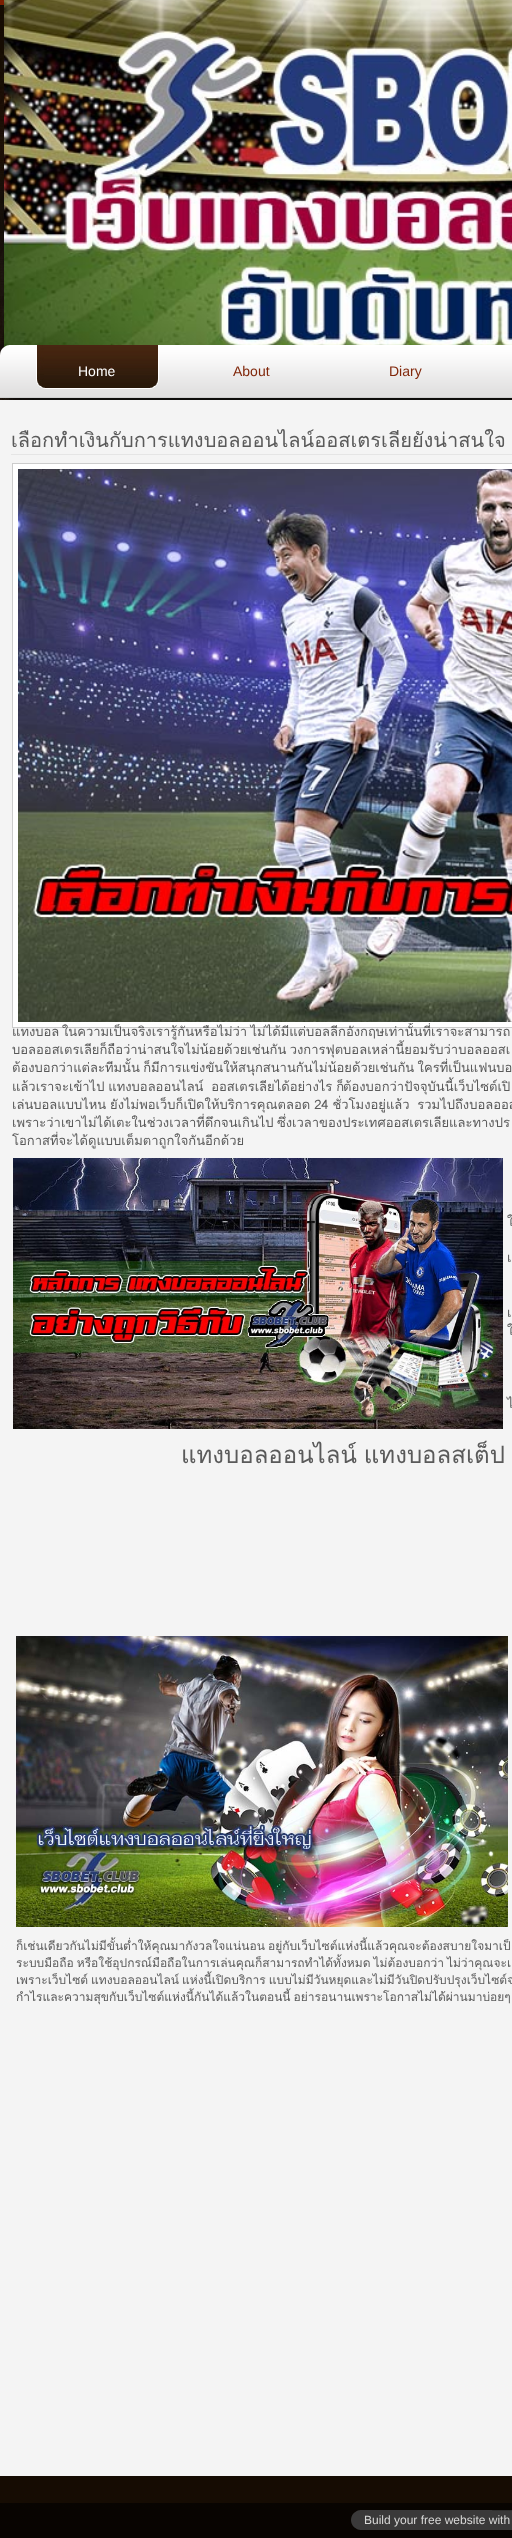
<svg xmlns="http://www.w3.org/2000/svg" xmlns:xlink="http://www.w3.org/1999/xlink" width="512" height="2538" viewBox="0 0 512 2538">
<style>
.cls-1{font:14px Liberation Sans;fill:#ffffff}
.cls-2{font:14px Liberation Sans;fill:#81270a}
.cls-3{font:20px Loma;fill:#5a5a5a}
.cls-4{font:13px Loma;fill:#5a5a5a}
.cls-5{font:24px Loma;fill:#5a5a5a}
.cls-6{font:12px Loma;fill:#5a5a5a}
.cls-7{font:12px Liberation Sans;fill:#d8d8d7}
</style>
<defs>
<clipPath id="clip1"><rect x="11" y="426" width="501" height="28"/></clipPath>
<clipPath id="clip2"><rect x="12" y="1023" width="500" height="137"/></clipPath>
<clipPath id="clip3"><rect x="16" y="1636" width="496" height="437"/></clipPath>
</defs>
<rect width="100%" height="100%" fill="#f4f4f4"/>
<image xlink:href="image0.png" x="0" y="0" width="512" height="400"/>
<image xlink:href="image1.png" x="4" y="0" width="508" height="348"/>
<image xlink:href="image2.png" x="0" y="345" width="512" height="53"/>
<image xlink:href="image3.png" x="36" y="345" width="123" height="44"/>
<rect fill="#e5e5e5" x="11" y="454" width="501" height="1"/>
<rect fill="#ffffff" stroke="#cccccc" x="12.5" y="463.5" width="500" height="564"/>
<image xlink:href="image4.png" x="18" y="469" width="494" height="553"/>
<image xlink:href="image5.png" x="13" y="1158" width="490" height="271"/>
<image xlink:href="image6.png" x="16" y="1636" width="492" height="291"/>
<rect fill="#160c03" x="0" y="2476" width="512" height="27"/>
<rect fill="#080401" x="0" y="2503" width="512" height="35"/>
<image xlink:href="image7.png" x="351" y="2510" width="161" height="20"/>
<text class="cls-1" x="78" y="376">Home</text>
<text class="cls-2" x="233" y="376">About</text>
<text class="cls-2" x="389" y="376">Diary</text>
<g clip-path="url(#clip1)">
<text class="cls-3" x="11" y="447">เลือกทำเงินกับการแทงบอลออนไลน์ออสเตรเลียยังน่าสนใจ</text>
</g>
<text class="cls-4" x="12" y="1036">แทงบอล</text>
<g clip-path="url(#clip2)">
<text class="cls-4" x="62" y="1036" word-spacing="-1">ในความเป็นจริงเรารู้กันหรือไม่ว่า ไม่ได้มีแต่บอลลีกอังกฤษเท่านั้นที่เราจะสามารถ</text>
</g>
<text class="cls-4" x="12" y="1054" word-spacing="-1">บอลออสเตรเลียก็ถือว่าน่าสนใจไม่น้อยด้วยเช่นกัน วงการฟุตบอลเหล่านี้ยอมรับว่าบอลออสเ</text>
<g clip-path="url(#clip2)">
<text class="cls-4" x="12" y="1072" word-spacing="-1">ต้องบอกว่าแต่ละทีมนั้น ก็มีการแข่งขันให้สนุกสนานกันไม่น้อยด้วยเช่นกัน ใครที่เป็นแฟนบอ</text>
</g>
<text class="cls-4" xml:space="preserve" x="12" y="1091" word-spacing="-0.5">แล้วเราจะเข้าไป แทงบอลออนไลน์  ออสเตรเลียได้อย่างไร ก็</text>
<text class="cls-4" x="343" y="1091" word-spacing="-1">ต้องบอกว่าปัจจุบันนี้เว็บไซต์เปิ</text>
<text class="cls-4" xml:space="preserve"><tspan x="12" y="1109" word-spacing="-0.5">เล่นบอลแบบไหน ยังไม่พอเว็บก็เปิดให้บริการคุณตลอด 24 ชั่วโมงอยู่แล้ว  รวมไปถึงบอลออส</tspan><tspan x="12" y="1127" word-spacing="-1">เพราะว่าเขาไม่ได้เตะในช่วงเวลาที่ดึกจนเกินไป ซึ่งเวลาของประเทศออสเตรเลียและทางปร</tspan><tspan x="12" y="1145">โอกาสที่จะได้ดูแบบเต็มตาถูกใจกันอีกด้วย</tspan></text>
<text class="cls-4" x="507" y="1226" word-spacing="-1">ใ</text>
<text class="cls-4" x="507" y="1262" word-spacing="-1">เ</text>
<text class="cls-4"><tspan x="507" y="1317" word-spacing="-1">เ</tspan><tspan x="507" y="1335" word-spacing="-1">ใ</tspan></text>
<text class="cls-4" x="507" y="1408" word-spacing="-1">ไ</text>
<text class="cls-5" x="181" y="1463" word-spacing="-1">แทงบอลออนไลน์ แทงบอลสเต็ป</text>
<g clip-path="url(#clip3)">
<text class="cls-6" x="16" y="1950">ก็เช่นเดียวกันไม่มีขั้นต่ำให้คุณมากังวลใจแน่นอน</text>
</g>
<text class="cls-6" x="268" y="1950">อยู่กับเว็บไซต์แห่งนี้แล้วคุณจะต้องสบายใจมาเป็</text>
<text class="cls-6"><tspan x="16" y="1967" word-spacing="-1">ระบบมือถือ หรือใช้อุปกรณ์มือถือในการเล่นคุณก็สามารถทำได้ทั้งหมด ไม่ต้องบอกว่า ไม่ว่าคุณจะเ</tspan><tspan x="16" y="1984" word-spacing="-1">เพราะเว็บไซต์ แทงบอลออนไลน์ แห่งนี้เปิดบริการ แบบไม่มีวันหยุดและไม่มีวันปิดปรับปรุงเว็บไซต์จ</tspan></text>
<g clip-path="url(#clip3)">
<text class="cls-6" x="16" y="2001" word-spacing="-1">กำไรและความสุขกับเว็บไซต์แห่งนี้กันได้แล้วในตอนนี้ อย่ารอนานเพราะโอกาสไม่ได้ผ่านมาบ่อยๆ</text>
</g>
<text class="cls-7" x="364" y="2524">Build your free website with</text>
</svg>
